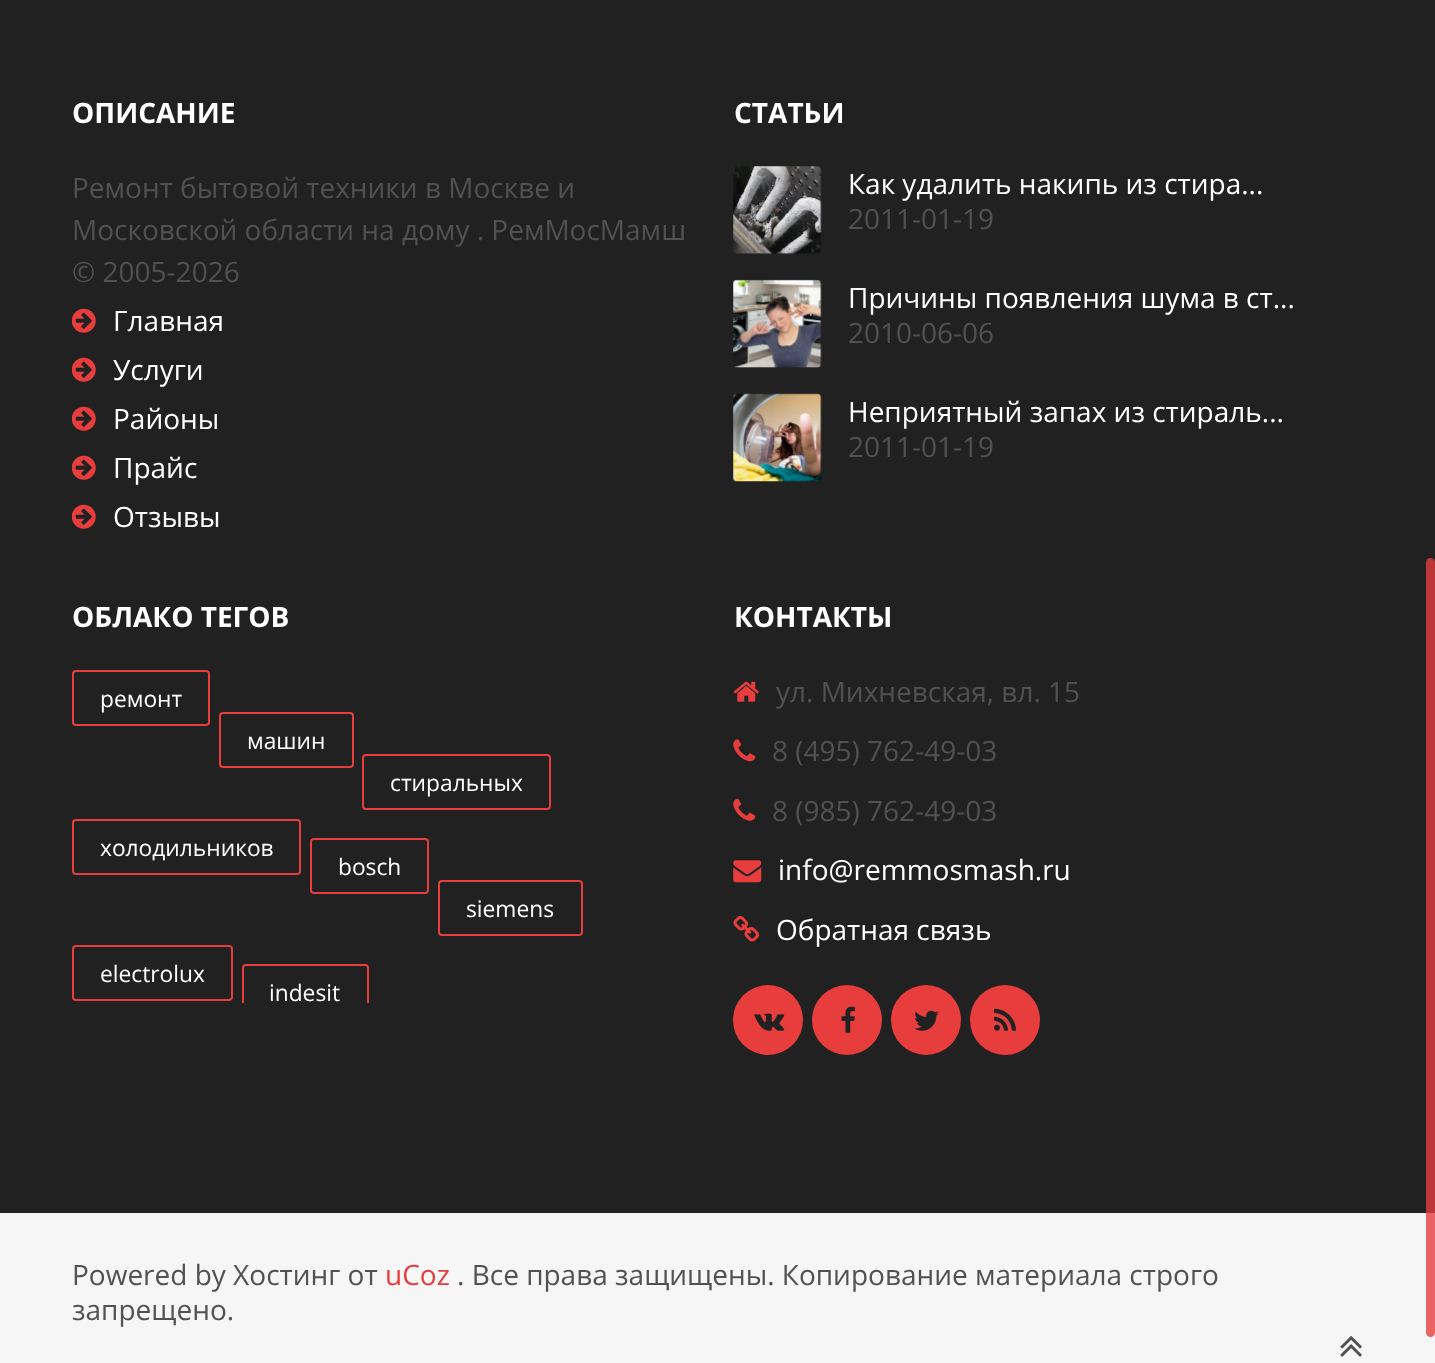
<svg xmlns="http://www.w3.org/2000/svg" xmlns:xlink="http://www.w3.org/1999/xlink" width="1435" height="1363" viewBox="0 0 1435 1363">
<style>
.cls-1{font:bold 28px Open Sans;fill:#ffffff}
.cls-2{font:28px Open Sans;fill:#515151}
.cls-3{font:28px Open Sans;fill:#ffffff}
.cls-4{font:22.75px Open Sans;fill:#ffffff}
.cls-5{font:28px Open Sans;fill:#e83d3d}
</style>
<defs>
<clipPath id="clip1"><rect x="72" y="670" width="630" height="333"/></clipPath>
</defs>
<rect width="100%" height="100%" fill="#f6f6f6"/>
<rect fill="#212121" x="0" y="0" width="1435" height="1213"/>
<image xlink:href="image0.png" x="72" y="308" width="24" height="25"/>
<image xlink:href="image0.png" x="72" y="357" width="24" height="25"/>
<image xlink:href="image0.png" x="72" y="406" width="24" height="25"/>
<image xlink:href="image0.png" x="72" y="455" width="24" height="25"/>
<image xlink:href="image0.png" x="72" y="504" width="24" height="25"/>
<image xlink:href="image1.png" x="733" y="166" width="89" height="89"/>
<image xlink:href="image2.png" x="733" y="279" width="89" height="89"/>
<image xlink:href="image3.png" x="733" y="393" width="89" height="89"/>
<rect fill="none" stroke="#e83d3d" stroke-width="2" x="73" y="671" width="136" height="54" rx="3"/>
<rect fill="none" stroke="#e83d3d" stroke-width="2" x="220" y="713" width="133" height="54" rx="3"/>
<rect fill="none" stroke="#e83d3d" stroke-width="2" x="363" y="755" width="187" height="54" rx="3"/>
<rect fill="none" stroke="#e83d3d" stroke-width="2" x="73" y="820" width="227" height="54" rx="3"/>
<rect fill="none" stroke="#e83d3d" stroke-width="2" x="311" y="839" width="117" height="54" rx="3"/>
<rect fill="none" stroke="#e83d3d" stroke-width="2" x="439" y="881" width="143" height="54" rx="3"/>
<rect fill="none" stroke="#e83d3d" stroke-width="2" x="73" y="946" width="159" height="54" rx="3"/>
<g clip-path="url(#clip1)">
<rect fill="none" stroke="#e83d3d" stroke-width="2" x="243" y="965" width="125" height="54" rx="3"/>
</g>
<image xlink:href="image4.png" x="733" y="681" width="26" height="21"/>
<image xlink:href="image5.png" x="733" y="739" width="23" height="23"/>
<image xlink:href="image6.png" x="733" y="798" width="23" height="23"/>
<image xlink:href="image7.png" x="733" y="860" width="29" height="23"/>
<image xlink:href="image8.png" x="733" y="916" width="26" height="26"/>
<circle fill="#e83d3d" cx="768" cy="1020" r="35"/>
<image xlink:href="image9.png" x="754" y="1013" width="31" height="18"/>
<circle fill="#e83d3d" cx="847" cy="1020" r="35"/>
<image xlink:href="image10.png" x="841" y="1006" width="14" height="27"/>
<circle fill="#e83d3d" cx="926" cy="1020" r="35"/>
<image xlink:href="image11.png" x="914" y="1010" width="25" height="21"/>
<circle fill="#e83d3d" cx="1005" cy="1020" r="35"/>
<image xlink:href="image12.png" x="994" y="1008" width="22" height="23"/>
<rect fill="#e83d3d" fill-opacity="0.79" x="1426" y="558" width="9" height="779" rx="4.5"/>
<image xlink:href="image13.png" x="1340" y="1336" width="22" height="21"/>
<text class="cls-1" x="72" y="123">ОПИСАНИЕ</text>
<text class="cls-2"><tspan x="72" y="198">Ремонт бытовой техники в Москве и</tspan><tspan x="72" y="240">Московской области на дому . РемМосМамш</tspan><tspan x="72" y="282">© 2005-2026</tspan></text>
<text class="cls-3"><tspan x="113" y="331">Главная</tspan><tspan x="113" y="380">Услуги</tspan><tspan x="113" y="429">Районы</tspan><tspan x="113" y="478">Прайс</tspan><tspan x="113" y="527">Отзывы</tspan></text>
<text class="cls-1" x="734" y="123">СТАТЬИ</text>
<text class="cls-3" x="848" y="194">Как удалить накипь из стира...</text>
<text class="cls-2" x="848" y="229">2011-01-19</text>
<text class="cls-3" x="848" y="308">Причины появления шума в ст...</text>
<text class="cls-2" x="848" y="343">2010-06-06</text>
<text class="cls-3" x="848" y="422">Неприятный запах из стираль...</text>
<text class="cls-2" x="848" y="457">2011-01-19</text>
<text class="cls-1" x="72" y="627">ОБЛАКО ТЕГОВ</text>
<text class="cls-4" x="100" y="707">ремонт</text>
<text class="cls-4" x="247" y="749">машин</text>
<text class="cls-4" x="390" y="791">стиральных</text>
<text class="cls-4" x="100" y="856">холодильников</text>
<text class="cls-4" x="338" y="875">bosch</text>
<text class="cls-4" x="466" y="917">siemens</text>
<text class="cls-4" x="100" y="982">electrolux</text>
<text class="cls-4" x="269" y="1001">indesit</text>
<text class="cls-1" x="734" y="627">КОНТАКТЫ</text>
<text class="cls-2" x="776" y="702">ул. Михневская, вл. 15</text>
<text class="cls-2" x="772" y="761">8 (495) 762-49-03</text>
<text class="cls-2" x="772" y="821">8 (985) 762-49-03</text>
<text class="cls-3" x="778" y="880">info@remmosmash.ru</text>
<text class="cls-3" x="776" y="940">Обратная связь</text>
<text class="cls-2" x="72" y="1285">Powered by Хостинг от</text>
<text class="cls-5" x="385" y="1285">uCoz</text>
<text class="cls-2" x="457" y="1285">. Все права защищены. Копирование материала строго</text>
<text class="cls-2" x="72" y="1320">запрещено.</text>
</svg>
